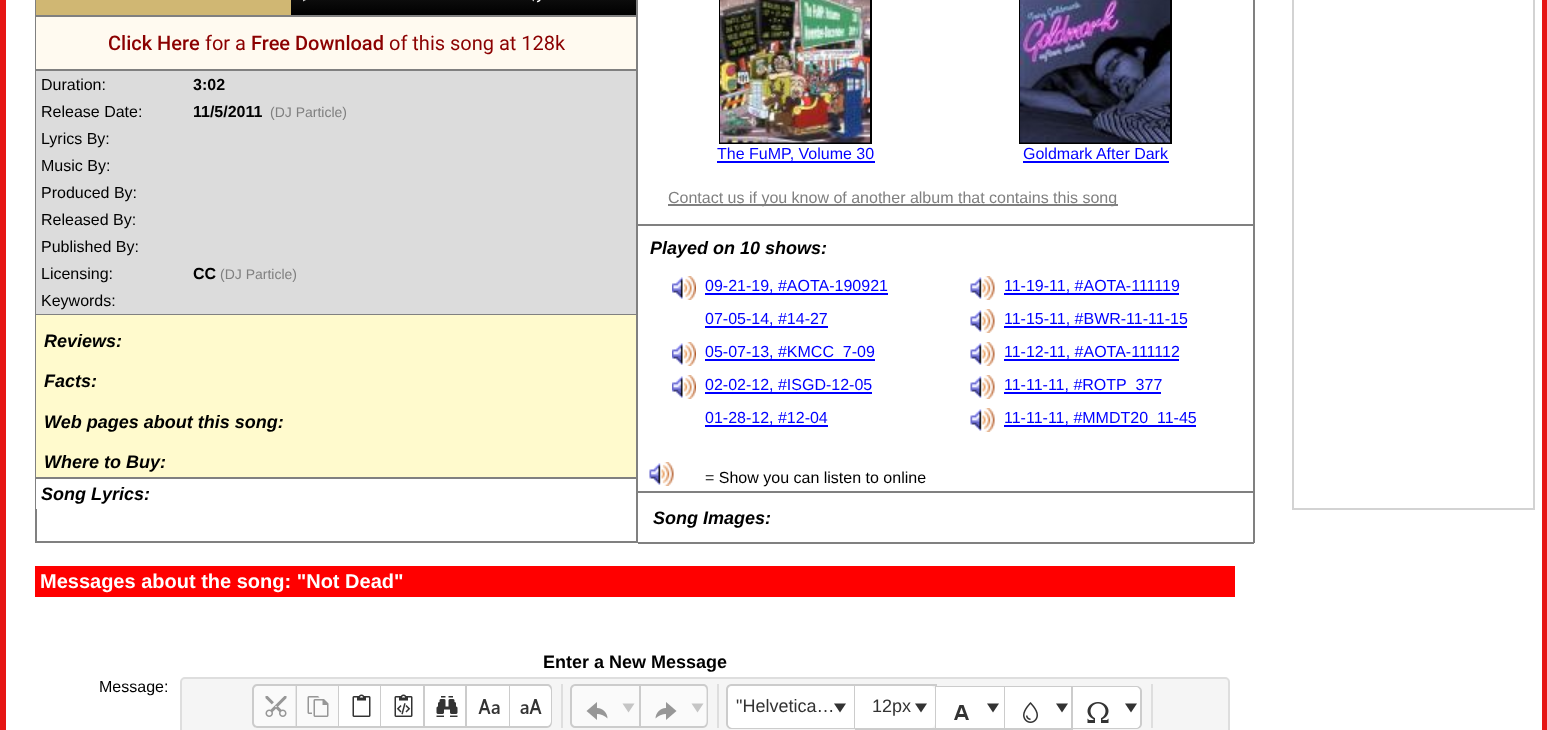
<svg xmlns="http://www.w3.org/2000/svg" xmlns:xlink="http://www.w3.org/1999/xlink" width="1547" height="730" viewBox="0 0 1547 730">
<style>
.cls-1{font:500 20px Roboto;fill:#8b0000}
.cls-2{font:20px Roboto;fill:#8b0000}
.cls-3{font:16px Liberation Sans;fill:#000000}
.cls-4{font:bold 16px Liberation Sans;fill:#000000}
.cls-5{font:14px Liberation Sans;fill:#808080}
.cls-6{font:italic bold 18px Liberation Sans;fill:#000000}
.cls-7{font:16px Liberation Sans;fill:#0000ff}
.cls-8{font:16px Liberation Sans;fill:#808080}
.cls-9{font:bold 20px Liberation Sans;fill:#ffffff}
.cls-10{font:bold 18px Liberation Sans;fill:#000000}
.cls-11{font:18px Liberation Sans;fill:#333333}
</style>
<defs>
<linearGradient id="g1" gradientUnits="userSpaceOnUse" x1="464" y1="-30" x2="464" y2="15"><stop offset="0" stop-color="#232323"/><stop offset="1" stop-color="#000000"/></linearGradient>
</defs>
<rect width="100%" height="100%" fill="#ffffff"/>
<rect fill="#e61514" x="0" y="0" width="6" height="730"/>
<rect fill="none" stroke="#808080" stroke-width="2" x="36" y="-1" width="601" height="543"/>
<rect fill="#808080" x="36" y="69" width="600" height="2"/>
<rect fill="#d0b773" x="36" y="0" width="255" height="15"/>
<rect fill="url(#g1)" x="291" y="0" width="345" height="15"/>
<image xlink:href="image0.png" x="303" y="0" width="3" height="2"/>
<image xlink:href="image1.png" x="532" y="0" width="9" height="3"/>
<rect fill="#fffaf0" x="36" y="17" width="600" height="52"/>
<rect fill="#808080" x="36" y="15" width="600" height="2"/>
<rect fill="#808080" x="36" y="314" width="600" height="1"/>
<rect fill="#dcdcdc" x="36" y="71" width="600" height="243"/>
<rect fill="#808080" x="36" y="477" width="600" height="2"/>
<rect fill="#fffacd" x="36" y="315" width="600" height="162"/>
<rect fill="#ffffff" x="36" y="479" width="1" height="30"/>
<rect fill="#808080" x="1253" y="0" width="2" height="543"/>
<rect fill="#808080" x="638" y="542" width="616" height="2"/>
<rect fill="#808080" x="638" y="224" width="615" height="2"/>
<rect fill="none" stroke="#000000" stroke-width="2" x="720" y="-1" width="151" height="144"/>
<image xlink:href="image2.png" x="720" y="0" width="150" height="143"/>
<rect fill="#0000ff" x="717" y="161" width="158" height="2"/>
<rect fill="none" stroke="#000000" stroke-width="2" x="1020" y="-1" width="151" height="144"/>
<image xlink:href="image3.png" x="1020" y="0" width="150" height="143"/>
<rect fill="#0000ff" x="1023" y="161" width="146" height="2"/>
<rect fill="#808080" x="668" y="204" width="450" height="2"/>
<rect fill="#808080" x="638" y="491" width="615" height="2"/>
<image xlink:href="image4.png" x="672" y="276" width="24" height="24"/>
<rect fill="#0000ff" x="705" y="293" width="183" height="2"/>
<image xlink:href="image5.png" x="970" y="276" width="25" height="24"/>
<rect fill="#0000ff" x="1004" y="293" width="175" height="2"/>
<rect fill="#0000ff" x="705" y="326" width="123" height="2"/>
<image xlink:href="image5.png" x="970" y="309" width="25" height="24"/>
<rect fill="#0000ff" x="1004" y="326" width="183" height="2"/>
<image xlink:href="image4.png" x="672" y="342" width="24" height="24"/>
<rect fill="#0000ff" x="705" y="359" width="170" height="2"/>
<image xlink:href="image5.png" x="970" y="342" width="25" height="24"/>
<rect fill="#0000ff" x="1004" y="359" width="175" height="2"/>
<image xlink:href="image4.png" x="672" y="375" width="24" height="24"/>
<rect fill="#0000ff" x="705" y="392" width="167" height="2"/>
<image xlink:href="image5.png" x="970" y="375" width="25" height="24"/>
<rect fill="#0000ff" x="1004" y="392" width="157" height="2"/>
<rect fill="#0000ff" x="705" y="425" width="123" height="2"/>
<image xlink:href="image5.png" x="970" y="408" width="25" height="24"/>
<rect fill="#0000ff" x="1004" y="425" width="192" height="2"/>
<image xlink:href="image6.png" x="649" y="462" width="25" height="24"/>
<rect fill="#ff0000" x="35" y="566" width="1200" height="31"/>
<rect fill="#f5f5f5" stroke="#dedede" stroke-width="2" x="181" y="678" width="1048" height="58" rx="4"/>
<path fill="none" stroke="#cccccc" stroke-width="2" d="M257 685H296V727H257C255 727 253 725 253 723V689C253 687 255 685 257 685Z"/>
<path fill="#ffffff" fill-opacity="0.5" d="M259 686H296V726H259C256 726 254 724 254 721V691C254 688 256 686 259 686Z"/>
<image xlink:href="image7.png" x="265" y="696" width="22" height="21"/>
<rect fill="#cccccc" x="297" y="684" width="213" height="2"/>
<rect fill="#cccccc" x="338" y="684" width="1" height="44"/>
<rect fill="#cccccc" x="297" y="726" width="42" height="2"/>
<rect fill="#fafafa" x="297" y="686" width="41" height="40"/>
<image xlink:href="image8.png" x="307" y="696" width="22" height="21"/>
<rect fill="#cccccc" x="380" y="684" width="1" height="44"/>
<rect fill="#cccccc" x="339" y="726" width="42" height="2"/>
<rect fill="#ffffff" x="339" y="686" width="41" height="40"/>
<image xlink:href="image9.png" x="352" y="694" width="19" height="23"/>
<rect fill="#cccccc" x="423" y="684" width="2" height="44"/>
<rect fill="#cccccc" x="381" y="726" width="44" height="2"/>
<rect fill="#ffffff" x="381" y="686" width="42" height="40"/>
<image xlink:href="image10.png" x="394" y="694" width="19" height="23"/>
<rect fill="#cccccc" x="465" y="684" width="2" height="44"/>
<rect fill="#cccccc" x="425" y="726" width="42" height="2"/>
<rect fill="#ffffff" x="425" y="686" width="40" height="40"/>
<image xlink:href="image11.png" x="436" y="696" width="22" height="21"/>
<rect fill="#cccccc" x="509" y="684" width="1" height="44"/>
<rect fill="#cccccc" x="467" y="726" width="43" height="2"/>
<rect fill="#ffffff" x="467" y="686" width="42" height="40"/>
<image xlink:href="image12.png" x="478" y="699" width="22" height="15"/>
<path fill="#cccccc" fill-rule="evenodd" d="M510 684H547C550 684 552 686 552 689V722C552 725 550 728 547 728H510ZM510 686H547C549 686 550 687 550 689V722C550 724 549 726 547 726H510Z"/>
<path fill="#ffffff" d="M510 686H546C549 686 551 688 551 691V721C551 724 549 726 546 726H510Z"/>
<image xlink:href="image13.png" x="520" y="699" width="22" height="15"/>
<rect fill="#dedede" x="561" y="684" width="2" height="44"/>
<path fill="none" stroke="#cccccc" stroke-width="2" d="M575 685H640V727H575C573 727 571 725 571 723V689C571 687 573 685 575 685Z"/>
<path fill="#fafafa" d="M577 686H639V726H577C574 726 572 724 572 721V691C572 688 574 686 577 686Z"/>
<image xlink:href="image14.png" x="586" y="702" width="22" height="18"/>
<path fill="#c5c5c5" d="M628.5 712.5L622.5 703.5H634.5Z"/>
<path fill="#cccccc" fill-rule="evenodd" d="M640 684H703C706 684 708 686 708 689V722C708 725 706 728 703 728H640ZM640 686H703C705 686 706 687 706 689V722C706 724 705 726 703 726H640Z"/>
<path fill="#ffffff" fill-opacity="0.5" d="M641 686H702C705 686 707 688 707 691V721C707 724 705 726 702 726H641Z"/>
<image xlink:href="image15.png" x="655" y="702" width="22" height="18"/>
<path fill="#c5c5c5" d="M697.5 712.5L691.5 703.5H703.5Z"/>
<rect fill="#dedede" x="717" y="684" width="2" height="44"/>
<rect fill="#cccccc" x="855" y="684" width="81" height="2"/>
<rect fill="#cccccc" x="935" y="684" width="2" height="45"/>
<rect fill="#cccccc" x="936" y="686" width="137" height="1"/>
<rect fill="#cccccc" x="1004" y="686" width="1" height="43"/>
<rect fill="#cccccc" x="936" y="728" width="69" height="2"/>
<rect fill="#ffffff" x="936" y="687" width="68" height="41"/>
<image xlink:href="image16.png" x="954" y="705" width="15" height="15"/>
<path fill="#333333" d="M993 712.5L987 703.5H999Z"/>
<rect fill="#dedede" x="1151" y="684" width="2" height="44"/>
<path fill="none" stroke="#cccccc" stroke-width="2" d="M731 685H854V728H731C729 728 727 726 727 724V689C727 687 729 685 731 685Z"/>
<path fill="#ffffff" d="M733 686H854V728H733C730 728 728 726 728 723V691C728 688 730 686 733 686Z"/>
<path fill="#333333" d="M840 712.5L834 703.5H846Z"/>
<rect fill="#cccccc" x="855" y="728" width="81" height="2"/>
<path fill="#ffffff" d="M855 686H930C933 686 935 688 935 691V723C935 726 933 728 930 728H855Z"/>
<path fill="#333333" d="M921 712.5L915 703.5H927Z"/>
<rect fill="#cccccc" x="1071" y="686" width="2" height="43"/>
<rect fill="#cccccc" x="1005" y="728" width="68" height="2"/>
<rect fill="#ffffff" x="1005" y="687" width="66" height="41"/>
<image xlink:href="image17.png" x="1023" y="702" width="15" height="21"/>
<path fill="#333333" d="M1062 712.5L1056 703.5H1068Z"/>
<path fill="#cccccc" fill-rule="evenodd" d="M1072 686H1136C1139 686 1142 688 1142 691V724C1142 727 1139 729 1136 729H1072ZM1072 687H1136C1138 687 1140 689 1140 691V724C1140 726 1138 728 1136 728H1072Z"/>
<path fill="#ffffff" d="M1073 687H1135C1138 687 1140 689 1140 692V723C1140 726 1138 728 1135 728H1073Z"/>
<image xlink:href="image18.png" x="1087" y="702" width="22" height="21"/>
<path fill="#333333" d="M1131 712.5L1125 703.5H1137Z"/>
<rect fill="none" stroke="#d3d3d3" stroke-width="2" x="1293" y="-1" width="241" height="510"/>
<rect fill="#e61514" x="1542" y="0" width="5" height="730"/>
<text class="cls-1" x="108" y="50">Click Here</text>
<text class="cls-2" x="205" y="50">for a</text>
<text class="cls-1" x="251" y="50">Free Download</text>
<text class="cls-2" x="389" y="50">of this song at 128k</text>
<text class="cls-3" x="41" y="90">Duration:</text>
<text class="cls-4" x="193" y="90">3:02</text>
<text class="cls-3" x="41" y="117">Release Date:</text>
<text class="cls-4" x="193" y="117">11/5/2011</text>
<text class="cls-5" x="270" y="117">(DJ Particle)</text>
<text class="cls-3"><tspan x="41" y="144">Lyrics By:</tspan><tspan x="41" y="171">Music By:</tspan><tspan x="41" y="198">Produced By:</tspan><tspan x="41" y="225">Released By:</tspan><tspan x="41" y="252">Published By:</tspan><tspan x="41" y="279">Licensing:</tspan></text>
<text class="cls-4" x="193" y="279">CC</text>
<text class="cls-5" x="220" y="279">(DJ Particle)</text>
<text class="cls-3" x="41" y="306">Keywords:</text>
<text class="cls-6" x="44" y="347">Reviews:</text>
<text class="cls-6" x="44" y="387">Facts:</text>
<text class="cls-6" x="44" y="428">Web pages about this song:</text>
<text class="cls-6" x="44" y="468">Where to Buy:</text>
<text class="cls-6" x="41" y="500">Song Lyrics:</text>
<text class="cls-7" x="717" y="159">The FuMP, Volume 30</text>
<text class="cls-7" x="1023" y="159">Goldmark After Dark</text>
<text class="cls-8" x="668" y="203">Contact us if you know of another album that contains this song</text>
<text class="cls-6" x="650" y="254">Played on 10 shows:</text>
<text class="cls-7" x="705" y="291">09-21-19, #AOTA-190921</text>
<text class="cls-7" x="1004" y="291">11-19-11, #AOTA-111119</text>
<text class="cls-7" x="705" y="324">07-05-14, #14-27</text>
<text class="cls-7" x="1004" y="324">11-15-11, #BWR-11-11-15</text>
<text class="cls-7" x="705" y="357">05-07-13, #KMCC_7-09</text>
<text class="cls-7" x="1004" y="357">11-12-11, #AOTA-111112</text>
<text class="cls-7" x="705" y="390">02-02-12, #ISGD-12-05</text>
<text class="cls-7" x="1004" y="390">11-11-11, #ROTP_377</text>
<text class="cls-7" x="705" y="423">01-28-12, #12-04</text>
<text class="cls-7" x="1004" y="423">11-11-11, #MMDT20_11-45</text>
<text class="cls-3" x="705" y="483">= Show you can listen to online</text>
<text class="cls-6" x="653" y="524">Song Images:</text>
<text class="cls-9" x="40" y="588">Messages about the song: "Not Dead"</text>
<text class="cls-10" x="543" y="668">Enter a New Message</text>
<text class="cls-3" x="99" y="692">Message:</text>
<text class="cls-11" x="736" y="712">"Helvetica…</text>
<text class="cls-11" x="872" y="712">12px</text>
</svg>
